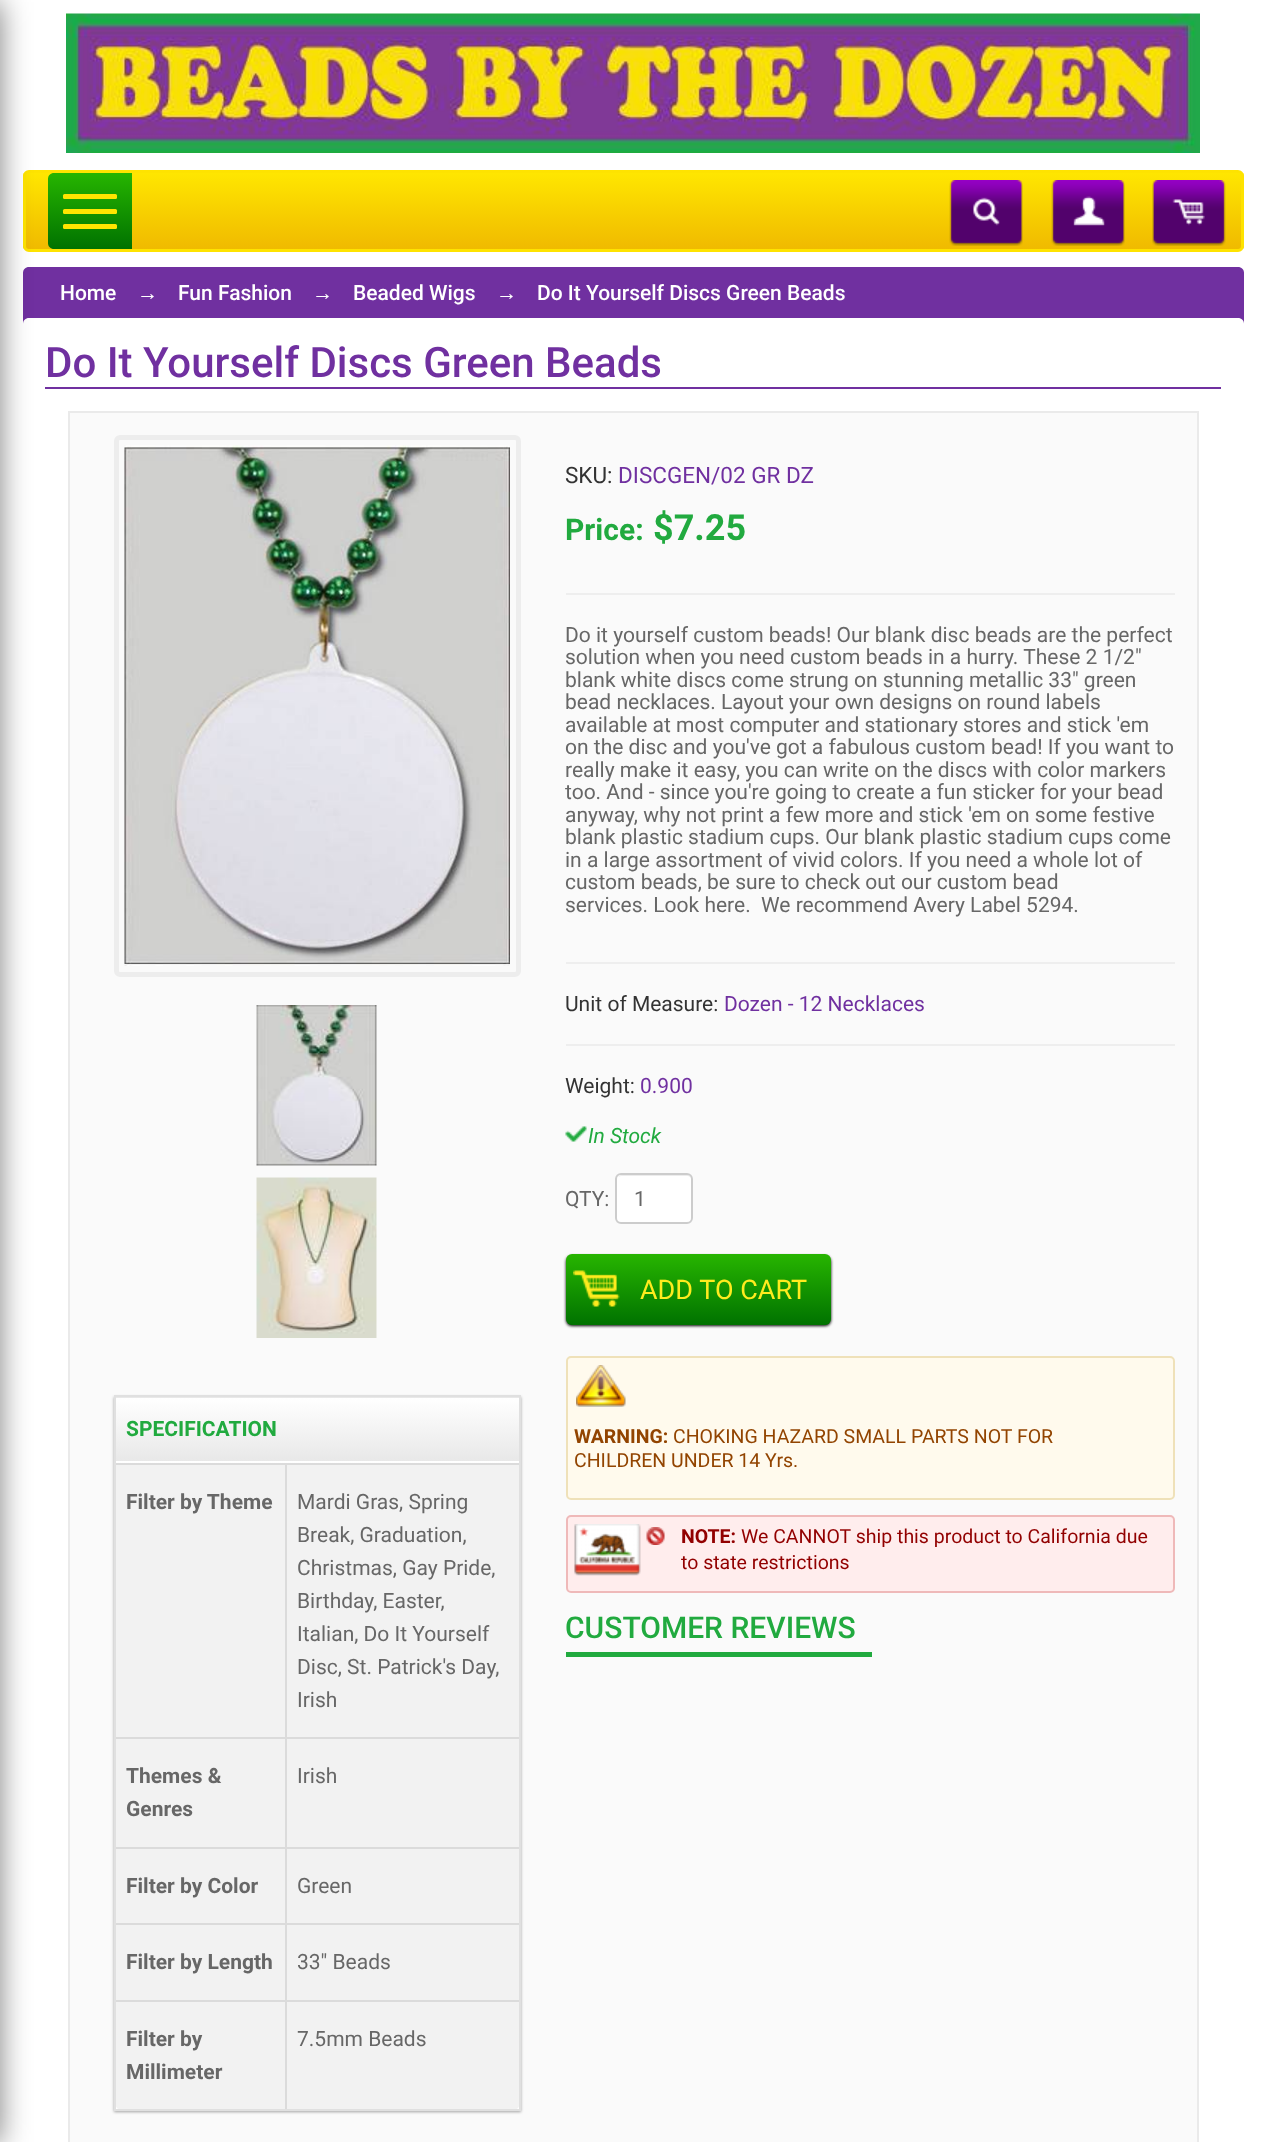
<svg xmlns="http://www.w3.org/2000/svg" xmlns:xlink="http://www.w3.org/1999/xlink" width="1265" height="2142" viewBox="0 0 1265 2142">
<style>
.cls-1{font:500 21px Roboto;fill:#ffffff}
.cls-2{font:bold 21px Liberation Sans;fill:#ffffff}
.cls-3{font:500 42px Roboto;fill:#7030a0}
.cls-4{font:22.5px Roboto;fill:#333333}
.cls-5{font:22.5px Roboto;fill:#7030a0}
.cls-6{font:bold 30px Roboto;fill:#21aa3f}
.cls-7{font:bold 36px Roboto;fill:#21aa3f}
.cls-8{font:21px Roboto;fill:#676767}
.cls-9{font:21px Roboto;fill:#333333}
.cls-10{font:21px Roboto;fill:#7030a0}
.cls-11{font:italic 21px Roboto;fill:#21aa3f}
.cls-12{font:27px Roboto;fill:#ffeb1e}
.cls-13{font:bold 19.5px Roboto;fill:#924400}
.cls-14{font:19.5px Roboto;fill:#924400}
.cls-15{font:bold 19.5px Roboto;fill:#920000}
.cls-16{font:19.5px Roboto;fill:#920000}
.cls-17{font:500 30px Roboto;fill:#21aa3f}
.cls-18{font:bold 21px Roboto;fill:#21aa3f}
.cls-19{font:bold 21px Roboto;fill:#676767}
</style>
<defs>
<clipPath id="clip1"><rect x="23" y="170" width="1221" height="82" rx="6"/></clipPath>
<linearGradient id="g1" gradientUnits="userSpaceOnUse" x1="633" y1="172" x2="633" y2="249"><stop offset="0" stop-color="#ffe700"/><stop offset="1" stop-color="#f0ba00"/></linearGradient>
<linearGradient id="g2" gradientUnits="userSpaceOnUse" x1="90" y1="173" x2="90" y2="249"><stop offset="0" stop-color="#26b500"/><stop offset="1" stop-color="#007200"/></linearGradient>
<linearGradient id="g3" gradientUnits="userSpaceOnUse" x1="698" y1="1254" x2="698" y2="1325"><stop offset="0" stop-color="#27b500"/><stop offset="1" stop-color="#007200"/></linearGradient>
<linearGradient id="g4" gradientUnits="userSpaceOnUse" x1="317" y1="1335" x2="317" y2="1398"><stop offset="0" stop-color="#ffffff"/><stop offset="1" stop-color="#e8e8e8"/></linearGradient>
<linearGradient id="g5" gradientUnits="userSpaceOnUse" x1="317" y1="1398" x2="317" y2="1461"><stop offset="0" stop-color="#ffffff"/><stop offset="1" stop-color="#e8e8e8"/></linearGradient>
<linearGradient id="g6" gradientUnits="userSpaceOnUse" x1="317" y1="1461" x2="317" y2="1524"><stop offset="0" stop-color="#ffffff"/><stop offset="1" stop-color="#e8e8e8"/></linearGradient>
</defs>
<rect width="100%" height="100%" fill="#ffffff"/>
<g clip-path="url(#clip1)">
<rect fill="url(#g1)" x="23" y="173" width="1221" height="76"/>
</g>
<rect fill="none" stroke="#fee300" stroke-width="3" x="24.5" y="171.5" width="1218" height="79" rx="4.5"/>
<path fill="#7030a0" d="M29 267H1238C1241.5 267 1244 269.5 1244 273V326H23V273C23 269.5 25.5 267 29 267Z"/>
<path fill="#ffffff" d="M29 318H1238C1241.5 318 1244 320.5 1244 324V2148H23V324C23 320.5 25.5 318 29 318Z"/>
<rect fill="#7030a0" x="45" y="387" width="1176" height="2"/>
<rect fill="#000000" fill-opacity="0.5" filter="blur(15px)" x="-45" y="2" width="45" height="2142"/>
<image xlink:href="image0.png" x="66" y="13" width="1134" height="140"/>
<path fill="url(#g2)" d="M54 173H132V249H54C50.5 249 48 246.5 48 243V179C48 175.5 50.5 173 54 173Z"/>
<rect fill="#ffe500" x="63" y="194" width="54" height="5" rx="1.5"/>
<rect fill="#ffe500" x="63" y="209" width="54" height="5" rx="1.5"/>
<rect fill="#ffe500" x="63" y="224" width="54" height="5" rx="1.5"/>
<image xlink:href="image1.png" x="949" y="180" width="74" height="66"/>
<image xlink:href="image2.png" x="1051" y="180" width="74" height="66"/>
<image xlink:href="image3.png" x="1152" y="180" width="74" height="66"/>
<rect fill="#fafafa" stroke="#eaeaea" stroke-width="2" x="69" y="412" width="1129" height="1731"/>
<rect fill="#eeeeee" x="566" y="593" width="609" height="2"/>
<rect fill="#eeeeee" x="566" y="962" width="609" height="2"/>
<rect fill="#eeeeee" x="566" y="1044" width="609" height="2"/>
<image xlink:href="image4.png" x="565" y="1126" width="22" height="16"/>
<rect fill="#ffffff" x="615" y="1173" width="78" height="51" rx="6"/>
<path fill="#ececec" d="M621 1176H687C689 1176 692 1178 692 1180C692 1177 690 1175 687 1175H622C620 1175 619 1176 618 1177Z"/>
<rect fill="none" stroke="#cccccc" stroke-width="2" x="616" y="1174" width="76" height="49" rx="5"/>
<rect fill="#000000" filter="blur(1.5px)" x="566" y="1256" width="265" height="70" rx="6"/>
<rect fill="url(#g3)" x="566" y="1254" width="265" height="71" rx="6"/>
<image xlink:href="image5.png" x="573" y="1270" width="47" height="37"/>
<rect fill="#fffaed" stroke="#efe1b9" stroke-width="2" x="567" y="1357" width="607" height="142" rx="4"/>
<image xlink:href="image6.png" x="576" y="1365" width="50" height="42"/>
<rect fill="#ffeded" stroke="#efb9b9" stroke-width="2" x="567" y="1516" width="607" height="76" rx="4"/>
<image xlink:href="image7.png" x="574" y="1524" width="67" height="52"/>
<image xlink:href="image8.png" x="646" y="1527" width="19" height="18"/>
<rect fill="#21aa3f" x="566" y="1652" width="306" height="5"/>
<rect fill="none" stroke="#ededed" stroke-width="5" x="116.5" y="437.5" width="402" height="537" rx="3.5"/>
<image xlink:href="image9.png" x="124" y="445" width="386" height="521"/>
<image xlink:href="image10.png" x="256" y="1005" width="121" height="161"/>
<image xlink:href="image11.png" x="256" y="1177" width="121" height="161"/>
<rect fill="#000000" fill-opacity="0.35" filter="blur(1.5px)" x="114" y="1397" width="407" height="715"/>
<rect fill="#ffffff" x="116" y="2106" width="403" height="3"/>
<rect fill="#e0e0e0" x="114" y="1395" width="407" height="2"/>
<rect fill="#e0e0e0" x="519" y="1395" width="2" height="716"/>
<rect fill="#e0e0e0" x="114" y="2109" width="407" height="2"/>
<rect fill="#e0e0e0" x="114" y="1395" width="2" height="716"/>
<rect fill="#dbdbdb" x="116" y="1463" width="403" height="2"/>
<rect fill="url(#g4)" x="116" y="1397" width="403" height="1"/>
<rect fill="url(#g5)" x="116" y="1398" width="403" height="63"/>
<rect fill="url(#g6)" x="116" y="1461" width="403" height="2"/>
<rect fill="#f2f2f2" x="116" y="1465" width="403" height="272"/>
<rect fill="#dbdbdb" x="116" y="1737" width="403" height="2"/>
<rect fill="#f2f2f2" x="116" y="1739" width="403" height="108"/>
<rect fill="#dbdbdb" x="116" y="1847" width="403" height="2"/>
<rect fill="#f2f2f2" x="116" y="1849" width="403" height="74"/>
<rect fill="#dbdbdb" x="116" y="1923" width="403" height="2"/>
<rect fill="#f2f2f2" x="116" y="1925" width="403" height="75"/>
<path fill="#f2f2f2" d="M116 2000H519V2106C519 2107.5 517.5 2109 516 2109H119C117.5 2109 116 2107.5 116 2106Z"/>
<rect fill="#dbdbdb" x="116" y="2000" width="403" height="2"/>
<rect fill="#dbdbdb" x="285" y="1463" width="2" height="646"/>
<text class="cls-1" x="60" y="300">Home</text>
<text class="cls-2" x="137" y="300">→</text>
<text class="cls-1" x="178" y="300">Fun Fashion</text>
<text class="cls-2" x="312" y="300">→</text>
<text class="cls-1" x="353" y="300">Beaded Wigs</text>
<text class="cls-2" x="496" y="300">→</text>
<text class="cls-1" x="537" y="300">Do It Yourself Discs Green Beads</text>
<text class="cls-3" x="45" y="377">Do It Yourself Discs Green Beads</text>
<text class="cls-4" x="565" y="483">SKU:</text>
<text class="cls-5" x="618" y="483">DISCGEN/02 GR DZ</text>
<text class="cls-6" x="565" y="540">Price:</text>
<text class="cls-7" x="653" y="540">$7.25</text>
<text class="cls-8"><tspan x="565" y="642">Do it yourself custom beads! Our blank disc beads are the perfect</tspan><tspan x="565" y="664">solution when you need custom beads in a hurry. These 2 1/2"</tspan><tspan x="565" y="687">blank white discs come strung on stunning metallic 33" green</tspan><tspan x="565" y="709">bead necklaces. Layout your own designs on round labels</tspan><tspan x="565" y="732">available at most computer and stationary stores and stick 'em</tspan><tspan x="565" y="754">on the disc and you've got a fabulous custom bead! If you want to</tspan><tspan x="565" y="777">really make it easy, you can write on the discs with color markers</tspan><tspan x="565" y="799">too. And - since you're going to create a fun sticker for your bead</tspan><tspan x="565" y="822">anyway, why not print a few more and stick 'em on some festive</tspan><tspan x="565" y="844">blank plastic stadium cups. Our blank plastic stadium cups come</tspan><tspan x="565" y="867">in a large assortment of vivid colors. If you need a whole lot of</tspan><tspan x="565" y="889">custom beads, be sure to check out our custom bead</tspan><tspan x="565" y="912">services. Look here.</tspan></text>
<text class="cls-8" x="761" y="912">We recommend Avery Label 5294.</text>
<text class="cls-9" x="565" y="1011">Unit of Measure:</text>
<text class="cls-10" x="724" y="1011">Dozen - 12 Necklaces</text>
<text class="cls-9" x="565" y="1093">Weight:</text>
<text class="cls-10" x="640" y="1093">0.900</text>
<text class="cls-11" x="588" y="1143">In Stock</text>
<text class="cls-8" x="565" y="1206">QTY:</text>
<text class="cls-8" x="634" y="1206">1</text>
<text class="cls-12" x="640" y="1299">ADD TO CART</text>
<text class="cls-13" x="574" y="1443">WARNING:</text>
<text class="cls-14" x="673" y="1443">CHOKING HAZARD SMALL PARTS NOT FOR</text>
<text class="cls-14" x="574" y="1467">CHILDREN UNDER 14 Yrs.</text>
<text class="cls-15" x="681" y="1543">NOTE:</text>
<text class="cls-16" x="741" y="1543">We CANNOT ship this product to California due</text>
<text class="cls-16" x="681" y="1569">to state restrictions</text>
<text class="cls-17" x="565" y="1638">CUSTOMER REVIEWS</text>
<text class="cls-18" x="126" y="1436">SPECIFICATION</text>
<text class="cls-19" x="126" y="1509">Filter by Theme</text>
<text class="cls-8"><tspan x="297" y="1509">Mardi Gras, Spring</tspan><tspan x="297" y="1542">Break, Graduation,</tspan><tspan x="297" y="1575">Christmas, Gay Pride,</tspan><tspan x="297" y="1608">Birthday, Easter,</tspan><tspan x="297" y="1641">Italian, Do It Yourself</tspan><tspan x="297" y="1674">Disc, St. Patrick's Day,</tspan><tspan x="297" y="1707">Irish</tspan></text>
<text class="cls-19"><tspan x="126" y="1783">Themes &amp;</tspan><tspan x="126" y="1816">Genres</tspan></text>
<text class="cls-8" x="297" y="1783">Irish</text>
<text class="cls-19" x="126" y="1893">Filter by Color</text>
<text class="cls-8" x="297" y="1893">Green</text>
<text class="cls-19" x="126" y="1969">Filter by Length</text>
<text class="cls-8" x="297" y="1969">33" Beads</text>
<text class="cls-19"><tspan x="126" y="2046">Filter by</tspan><tspan x="126" y="2079">Millimeter</tspan></text>
<text class="cls-8" x="297" y="2046">7.5mm Beads</text>
</svg>
